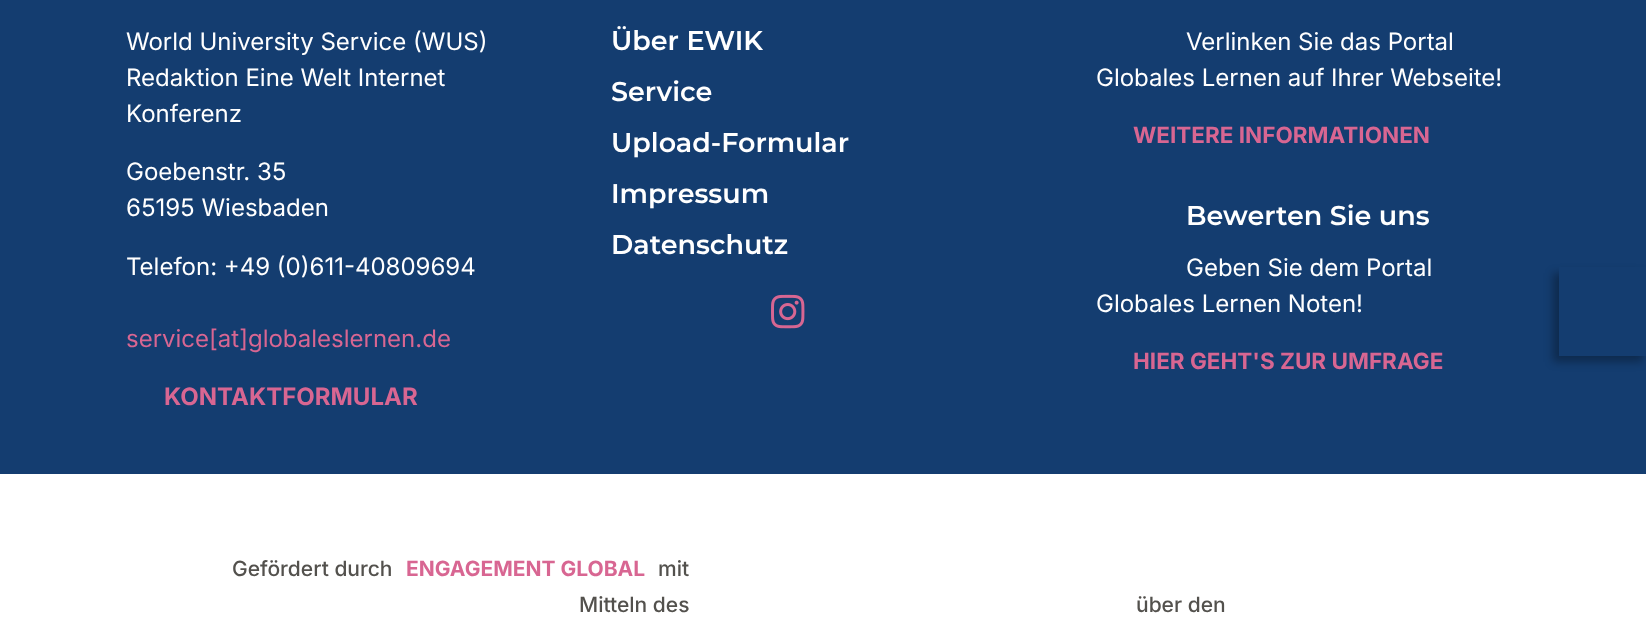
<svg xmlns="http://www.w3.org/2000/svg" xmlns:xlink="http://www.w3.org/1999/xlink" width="1646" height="623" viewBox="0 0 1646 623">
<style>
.cls-1{font:24px Inter;fill:#ffffff}
.cls-2{font:24px Inter;fill:#d86692}
.cls-3{font:bold 24px Inter;fill:#d86692}
.cls-4{font:600 27px Montserrat;fill:#ffffff}
.cls-5{font:bold 22.5px Inter;fill:#d86692}
.cls-6{font:500 21px Inter;fill:#53514d}
.cls-7{font:bold 21px Inter;fill:#d86692}
</style>
<rect width="100%" height="100%" fill="#ffffff"/>
<rect fill="#143d70" x="0" y="0" width="1646" height="474"/>
<image xlink:href="image0.png" x="771" y="294" width="34" height="35"/>
<rect fill="#000000" fill-opacity="0.3" filter="blur(4.5px)" x="1553" y="273" width="90" height="89"/>
<rect fill="#143d70" x="1559" y="267" width="87" height="89"/>
<text class="cls-1"><tspan x="126" y="50">World University Service (WUS)</tspan><tspan x="126" y="86">Redaktion Eine Welt Internet</tspan><tspan x="126" y="122">Konferenz</tspan></text>
<text class="cls-1"><tspan x="126" y="180">Goebenstr. 35</tspan><tspan x="126" y="216">65195 Wiesbaden</tspan></text>
<text class="cls-1" x="126" y="275">Telefon: +49 (0)611-40809694</text>
<text class="cls-2" x="126" y="347">service[at]globaleslernen.de</text>
<text class="cls-3" x="164" y="405">KONTAKTFORMULAR</text>
<text class="cls-4"><tspan x="611" y="50">Über EWIK</tspan><tspan x="611" y="101">Service</tspan><tspan x="611" y="152">Upload-Formular</tspan><tspan x="611" y="203">Impressum</tspan><tspan x="611" y="254">Datenschutz</tspan></text>
<text class="cls-1" x="1186" y="50">Verlinken Sie das Portal</text>
<text class="cls-1" x="1096" y="86">Globales Lernen auf Ihrer Webseite!</text>
<text class="cls-5" x="1133" y="143">WEITERE INFORMATIONEN</text>
<text class="cls-4" x="1186" y="225">Bewerten Sie uns</text>
<text class="cls-1" x="1186" y="276">Geben Sie dem Portal</text>
<text class="cls-1" x="1096" y="312">Globales Lernen Noten!</text>
<text class="cls-5" x="1133" y="369">HIER GEHT'S ZUR UMFRAGE</text>
<text class="cls-6" x="232" y="576">Gefördert durch</text>
<text class="cls-7" x="406" y="576">ENGAGEMENT GLOBAL</text>
<text class="cls-6" x="658" y="576">mit</text>
<text class="cls-6" x="579" y="612">Mitteln des</text>
<text class="cls-6" x="1136" y="612">über den</text>
</svg>
